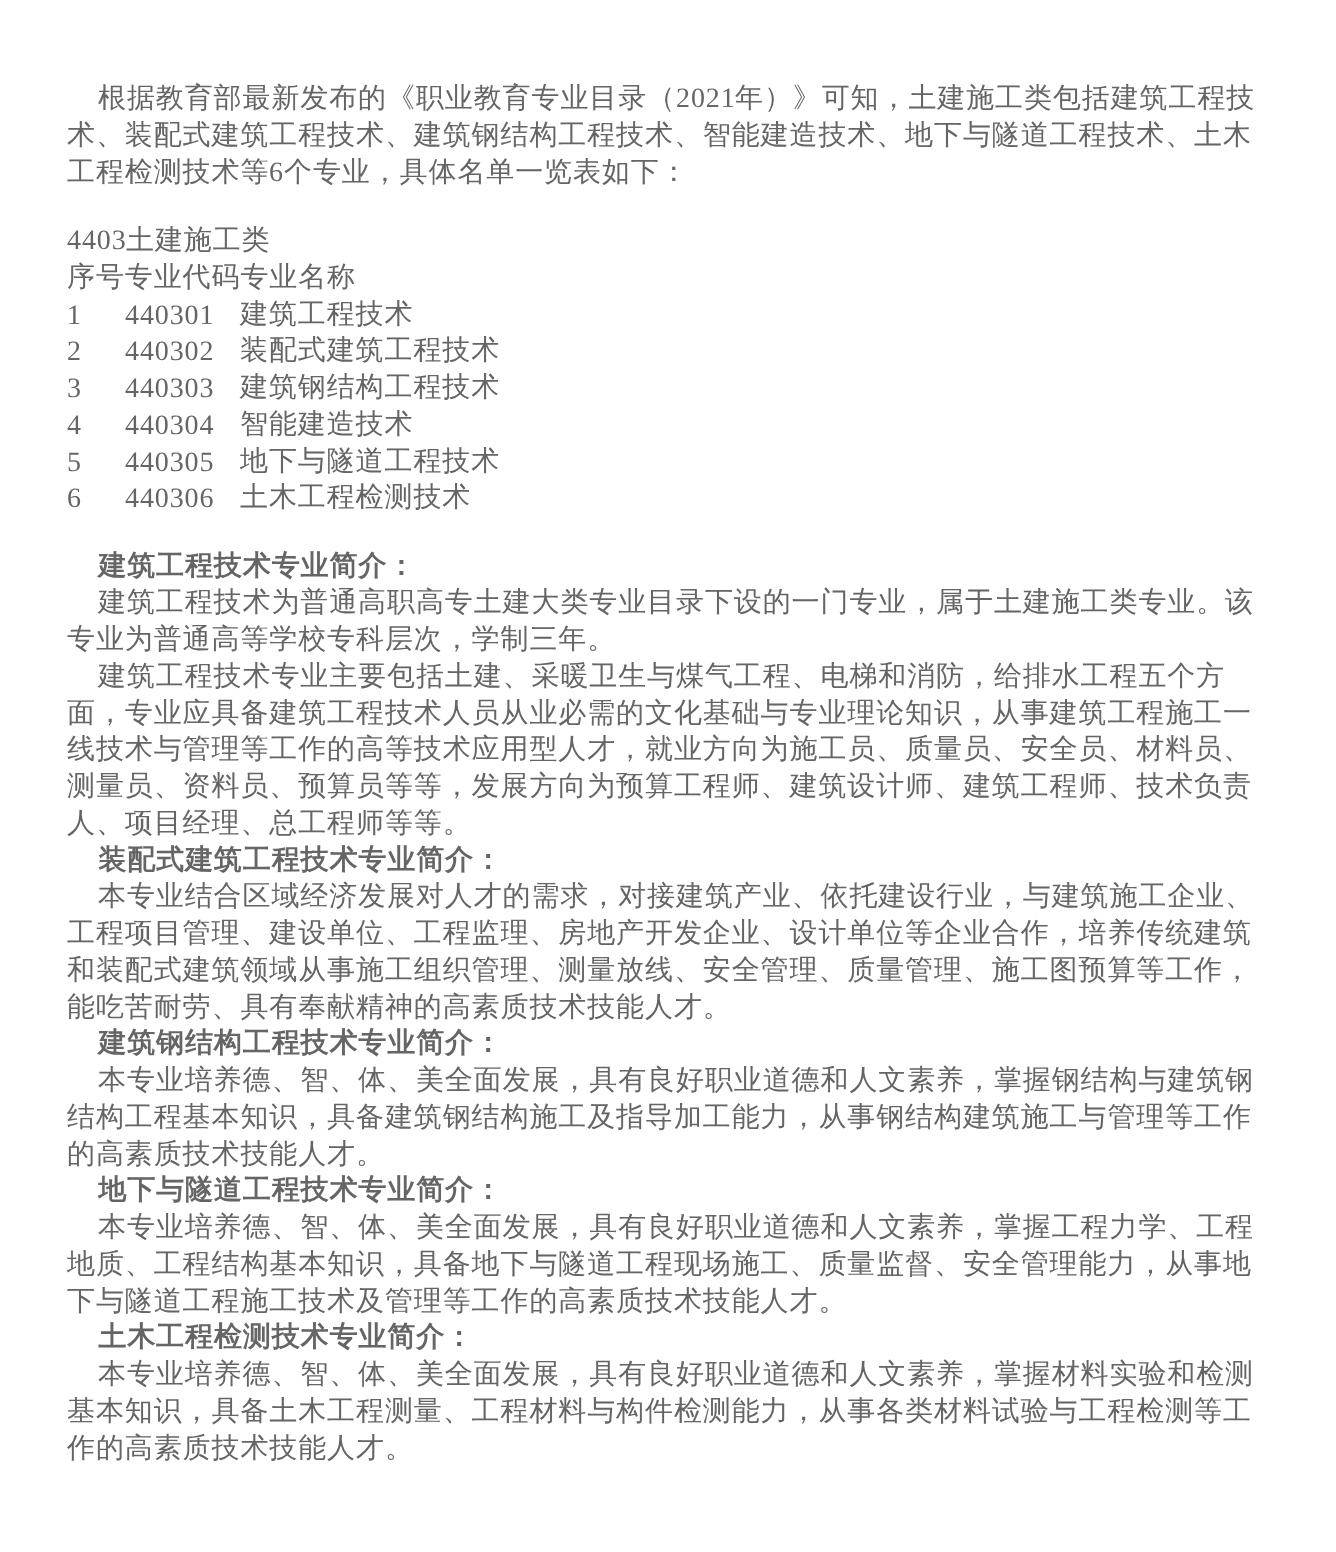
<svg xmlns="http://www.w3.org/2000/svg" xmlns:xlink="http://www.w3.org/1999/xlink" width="1336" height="1552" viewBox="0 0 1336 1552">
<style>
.cls-1{font:500 28px WenQuanYi Zen Hei;letter-spacing:0.9px;fill:#656565}
.cls-2{font:28px Liberation Serif;letter-spacing:0.9px;fill:#656565}
.cls-3{font:bold 28px WenQuanYi Zen Hei;letter-spacing:0.9px;fill:#656565}
</style>
<rect width="100%" height="100%" fill="#ffffff"/>
<text class="cls-1" x="98" y="107">根据教育部最新发布的《职业教育专业目录（</text>
<text class="cls-2" x="676" y="107">2021</text>
<text class="cls-1" x="735" y="107">年）》可知，土建施工类包括建筑工程技</text>
<text class="cls-1"><tspan x="67" y="144">术、装配式建筑工程技术、建筑钢结构工程技术、智能建造技术、地下与隧道工程技术、土木</tspan><tspan x="67" y="181">工程检测技术等</tspan></text>
<text class="cls-2" x="269" y="181">6</text>
<text class="cls-1" x="284" y="181">个专业，具体名单一览表如下：</text>
<text class="cls-2" x="67" y="249">4403</text>
<text class="cls-1" x="126" y="249">土建施工类</text>
<text class="cls-1" x="67" y="286">序号专业代码专业名称</text>
<text class="cls-2" x="67" y="324">1</text>
<text class="cls-2" x="125" y="324">440301</text>
<text class="cls-1" x="240" y="323">建筑工程技术</text>
<text class="cls-2" x="67" y="360">2</text>
<text class="cls-2" x="125" y="360">440302</text>
<text class="cls-1" x="240" y="359">装配式建筑工程技术</text>
<text class="cls-2" x="67" y="397">3</text>
<text class="cls-2" x="125" y="397">440303</text>
<text class="cls-1" x="240" y="396">建筑钢结构工程技术</text>
<text class="cls-2" x="67" y="434">4</text>
<text class="cls-2" x="125" y="434">440304</text>
<text class="cls-1" x="240" y="433">智能建造技术</text>
<text class="cls-2" x="67" y="471">5</text>
<text class="cls-2" x="125" y="471">440305</text>
<text class="cls-1" x="240" y="470">地下与隧道工程技术</text>
<text class="cls-2" x="67" y="507">6</text>
<text class="cls-2" x="125" y="507">440306</text>
<text class="cls-1" x="240" y="506">土木工程检测技术</text>
<text class="cls-3" x="98" y="575">建筑工程技术专业简介：</text>
<text class="cls-1" x="98" y="611">建筑工程技术为普通高职高专土建大类专业目录下设的一门专业，属于土建施工类专业。该</text>
<text class="cls-1" x="67" y="648">专业为普通高等学校专科层次，学制三年。</text>
<text class="cls-1" x="98" y="685">建筑工程技术专业主要包括土建、采暖卫生与煤气工程、电梯和消防，给排水工程五个方</text>
<text class="cls-1"><tspan x="67" y="722">面，专业应具备建筑工程技术人员从业必需的文化基础与专业理论知识，从事建筑工程施工一</tspan><tspan x="67" y="758">线技术与管理等工作的高等技术应用型人才，就业方向为施工员、质量员、安全员、材料员、</tspan><tspan x="67" y="795">测量员、资料员、预算员等等，发展方向为预算工程师、建筑设计师、建筑工程师、技术负责</tspan><tspan x="67" y="832">人、项目经理、总工程师等等。</tspan></text>
<text class="cls-3" x="98" y="869">装配式建筑工程技术专业简介：</text>
<text class="cls-1" x="98" y="905">本专业结合区域经济发展对人才的需求，对接建筑产业、依托建设行业，与建筑施工企业、</text>
<text class="cls-1"><tspan x="67" y="942">工程项目管理、建设单位、工程监理、房地产开发企业、设计单位等企业合作，培养传统建筑</tspan><tspan x="67" y="979">和装配式建筑领域从事施工组织管理、测量放线、安全管理、质量管理、施工图预算等工作，</tspan><tspan x="67" y="1016">能吃苦耐劳、具有奉献精神的高素质技术技能人才。</tspan></text>
<text class="cls-3" x="98" y="1052">建筑钢结构工程技术专业简介：</text>
<text class="cls-1" x="98" y="1089">本专业培养德、智、体、美全面发展，具有良好职业道德和人文素养，掌握钢结构与建筑钢</text>
<text class="cls-1"><tspan x="67" y="1126">结构工程基本知识，具备建筑钢结构施工及指导加工能力，从事钢结构建筑施工与管理等工作</tspan><tspan x="67" y="1163">的高素质技术技能人才。</tspan></text>
<text class="cls-3" x="98" y="1199">地下与隧道工程技术专业简介：</text>
<text class="cls-1" x="98" y="1236">本专业培养德、智、体、美全面发展，具有良好职业道德和人文素养，掌握工程力学、工程</text>
<text class="cls-1"><tspan x="67" y="1273">地质、工程结构基本知识，具备地下与隧道工程现场施工、质量监督、安全管理能力，从事地</tspan><tspan x="67" y="1310">下与隧道工程施工技术及管理等工作的高素质技术技能人才。</tspan></text>
<text class="cls-3" x="98" y="1346">土木工程检测技术专业简介：</text>
<text class="cls-1" x="98" y="1383">本专业培养德、智、体、美全面发展，具有良好职业道德和人文素养，掌握材料实验和检测</text>
<text class="cls-1"><tspan x="67" y="1420">基本知识，具备土木工程测量、工程材料与构件检测能力，从事各类材料试验与工程检测等工</tspan><tspan x="67" y="1457">作的高素质技术技能人才。</tspan></text>
</svg>
